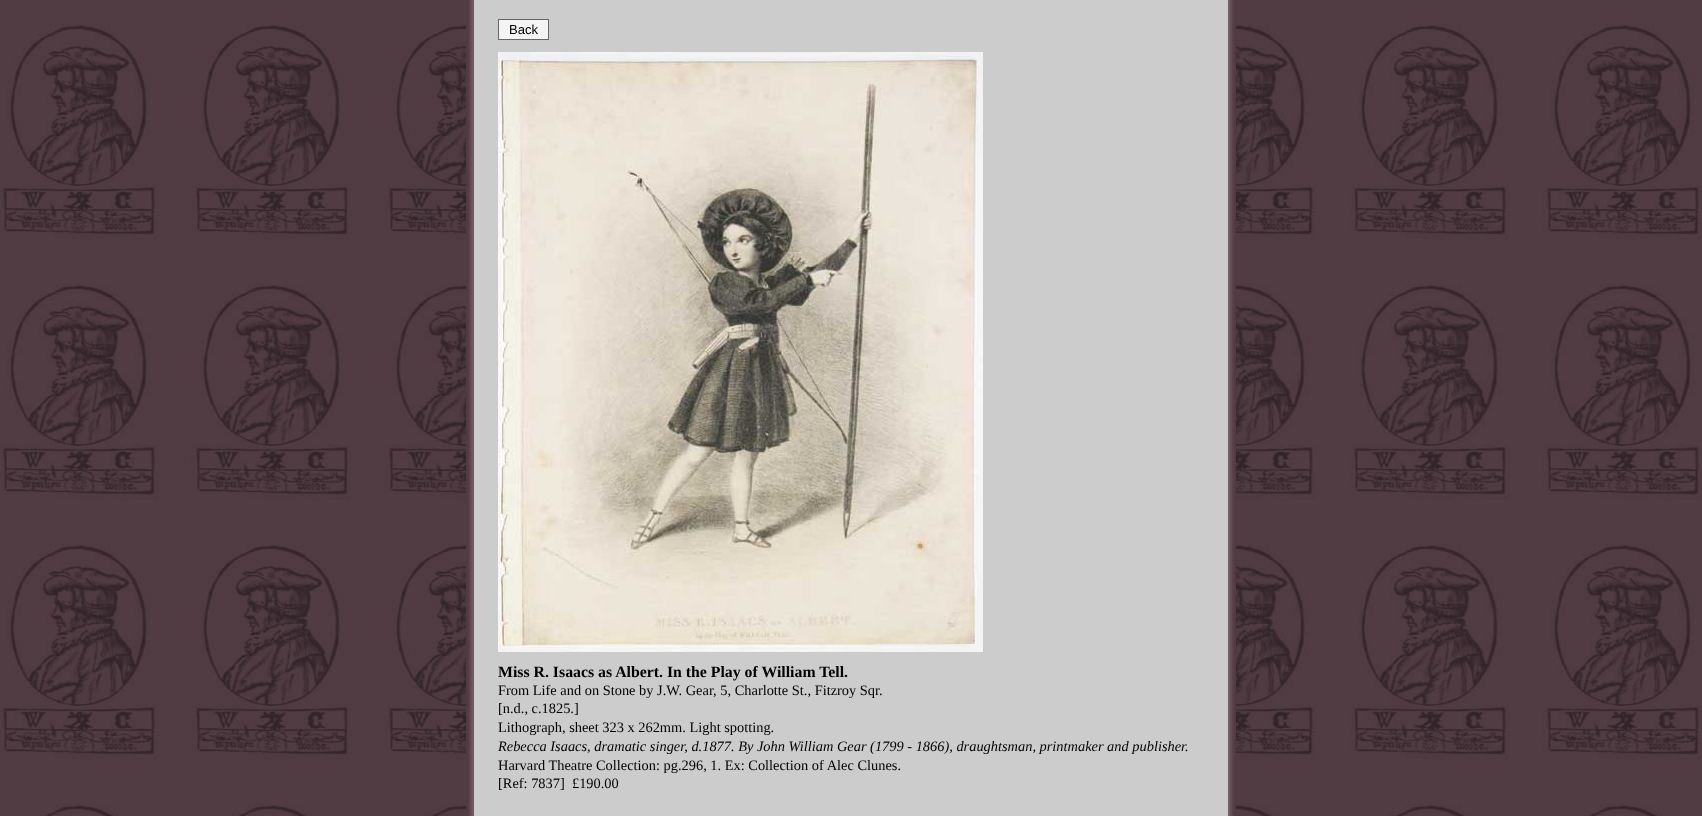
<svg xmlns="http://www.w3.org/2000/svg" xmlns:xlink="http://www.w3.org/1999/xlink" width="1702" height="816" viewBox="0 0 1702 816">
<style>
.cls-1{font:13px Liberation Sans;fill:#000000}
.cls-2{font:bold 15.8px Liberation Serif;fill:#000000}
.cls-3{font:14.4px Liberation Serif;fill:#000000}
.cls-4{font:italic 14.4px Liberation Serif;fill:#000000}
</style>
<rect width="100%" height="100%" fill="#ffffff"/>
<image xlink:href="image0.png" x="0" y="0" width="1702" height="816"/>
<image xlink:href="image1.png" x="466" y="0" width="770" height="816"/>
<rect fill="#f4f4f4" stroke="#666666" x="498.5" y="19.5" width="50" height="20"/>
<image xlink:href="image2.png" x="498" y="52" width="485" height="600"/>
<text class="cls-1" x="509" y="34">Back</text>
<text class="cls-2" x="498" y="677">Miss R. Isaacs as Albert. In the Play of William Tell.</text>
<text class="cls-3"><tspan x="498" y="695">From Life and on Stone by J.W. Gear, 5, Charlotte St., Fitzroy Sqr.</tspan><tspan x="498" y="713">[n.d., c.1825.]</tspan><tspan x="498" y="732">Lithograph, sheet 323 x 262mm. Light spotting.</tspan></text>
<text class="cls-4" x="498" y="751">Rebecca Isaacs, dramatic singer, d.1877. By John William Gear (1799 - 1866), draughtsman, printmaker and publisher.</text>
<text class="cls-3" xml:space="preserve"><tspan x="498" y="770">Harvard Theatre Collection: pg.296, 1. Ex: Collection of Alec Clunes.</tspan><tspan x="498" y="788">[Ref: 7837]  £190.00</tspan></text>
</svg>
